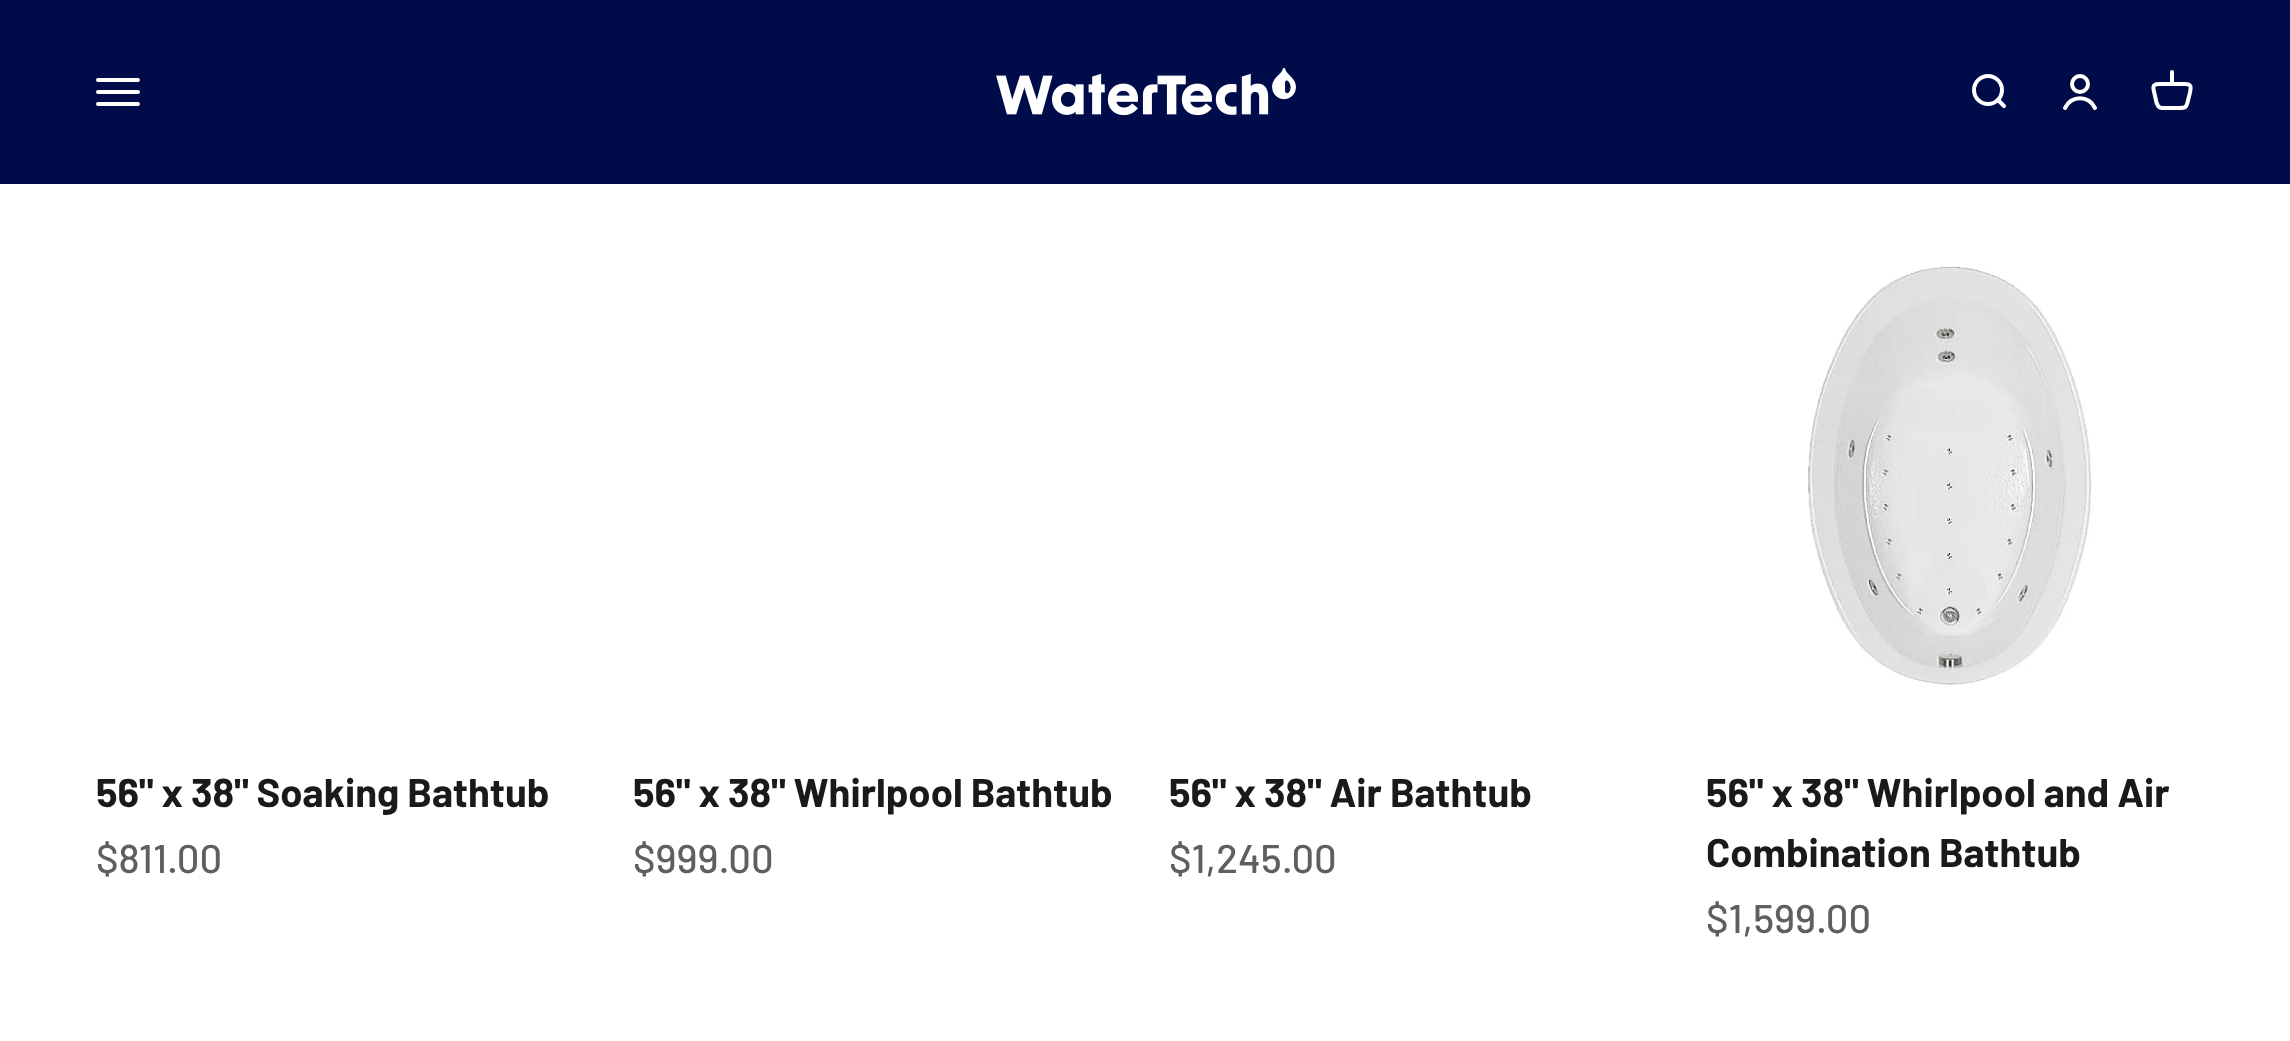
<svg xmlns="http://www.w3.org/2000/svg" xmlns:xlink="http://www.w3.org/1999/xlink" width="2290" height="1041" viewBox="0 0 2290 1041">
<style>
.cls-1{font:bold 40px Barlow;fill:#1a1a1a}
.cls-2{font:500 40px Barlow;fill:#5f5f5f}
</style>
<rect width="100%" height="100%" fill="#ffffff"/>
<rect fill="#000b49" x="0" y="0" width="2290" height="184"/>
<path fill="none" stroke="#ffffff" stroke-width="4" stroke-linecap="round" d="M98 80H138M98 92H138M98 104H138"/>
<image xlink:href="image0.png" x="996" y="68" width="300" height="48"/>
<circle fill="none" stroke="#ffffff" stroke-width="4" cx="1988" cy="90" r="14"/>
<path fill="none" stroke="#ffffff" stroke-width="4" stroke-linecap="round" stroke-linejoin="round" d="M1998 100L2004 106"/>
<circle fill="none" stroke="#ffffff" stroke-width="4" cx="2080" cy="84" r="8"/>
<path fill="none" stroke="#ffffff" stroke-width="4" stroke-linecap="round" d="M2065 108C2071.5 95 2088.5 95 2095 108"/>
<path fill="none" stroke="#ffffff" stroke-width="4" stroke-linecap="round" stroke-linejoin="round" d="M2172 84H2162C2160 84 2156.5 83.5 2154.5 85C2152.5 86.5 2153.5 89.5 2154 91.5L2156.5 102.5C2157.5 105 2158 108 2161.5 108H2179C2185 108 2186 108 2187.5 102.5L2189.5 94.5C2191 87.5 2192.5 84 2184.5 84ZM2172 84V72"/>
<image xlink:href="image1.png" x="1808" y="266" width="284" height="419"/>
<text class="cls-1" x="96" y="807">56" x 38" Soaking Bathtub</text>
<text class="cls-2" x="96" y="873">$811.00</text>
<text class="cls-1" x="633" y="807">56" x 38" Whirlpool Bathtub</text>
<text class="cls-2" x="633" y="873">$999.00</text>
<text class="cls-1" x="1169" y="807">56" x 38" Air Bathtub</text>
<text class="cls-2" x="1169" y="873">$1,245.00</text>
<text class="cls-1"><tspan x="1706" y="807">56" x 38" Whirlpool and Air</tspan><tspan x="1706" y="867">Combination Bathtub</tspan></text>
<text class="cls-2" x="1706" y="933">$1,599.00</text>
</svg>
